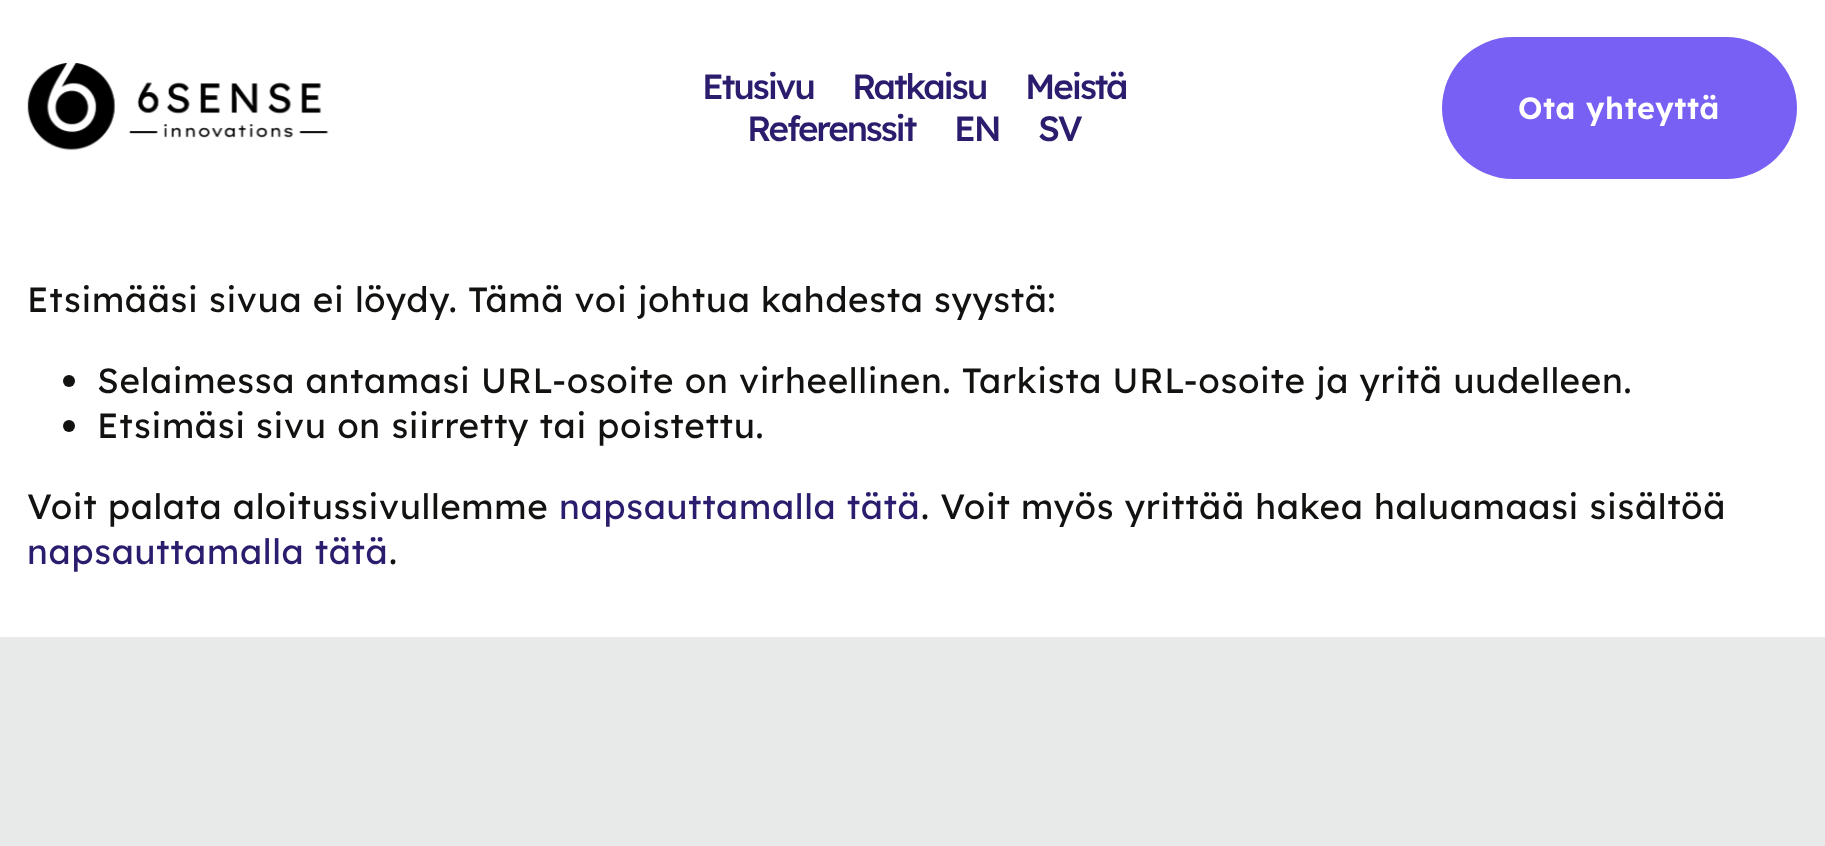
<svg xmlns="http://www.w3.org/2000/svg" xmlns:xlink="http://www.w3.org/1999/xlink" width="1825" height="846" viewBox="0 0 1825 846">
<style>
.cls-1{font:500 35px Lexend;letter-spacing:-2.1px;fill:#2c1c6e}
.cls-2{font:600 30.5px Lexend;letter-spacing:0.6px;fill:#ffffff}
.cls-3{font:35px Lexend;letter-spacing:0.7px;fill:#121211}
.cls-4{font:35px Lexend;letter-spacing:0.7px;fill:#2c1c6e}
</style>
<rect width="100%" height="100%" fill="#ffffff"/>
<image xlink:href="image0.png" x="27" y="63" width="302" height="88"/>
<rect fill="#7860f4" x="1442" y="37" width="355" height="142" rx="71"/>
<circle fill="#121211" cx="69" cy="381" r="6"/>
<circle fill="#121211" cx="69" cy="426" r="6"/>
<rect fill="#e8eaea" x="0" y="637" width="1825" height="209"/>
<text class="cls-1" x="702" y="99">Etusivu</text>
<text class="cls-1" x="852" y="99">Ratkaisu</text>
<text class="cls-1" x="1025" y="99">Meistä</text>
<text class="cls-1" x="747" y="141">Referenssit</text>
<text class="cls-1" x="954" y="141">EN</text>
<text class="cls-1" x="1038" y="141">SV</text>
<text class="cls-2" x="1518" y="119">Ota yhteyttä</text>
<text class="cls-3" x="27" y="312">Etsimääsi sivua ei löydy. Tämä voi johtua kahdesta syystä:</text>
<text class="cls-3"><tspan x="97" y="393">Selaimessa antamasi URL-osoite on virheellinen. Tarkista URL-osoite ja yritä uudelleen.</tspan><tspan x="97" y="438">Etsimäsi sivu on siirretty tai poistettu.</tspan></text>
<text class="cls-3" x="27" y="519">Voit palata aloitussivullemme</text>
<text class="cls-4" x="559" y="519">napsauttamalla tätä</text>
<text class="cls-3" x="921" y="519">. Voit myös yrittää hakea haluamaasi sisältöä</text>
<text class="cls-4" x="27" y="564">napsauttamalla tätä</text>
<text class="cls-3" x="389" y="564">.</text>
</svg>
